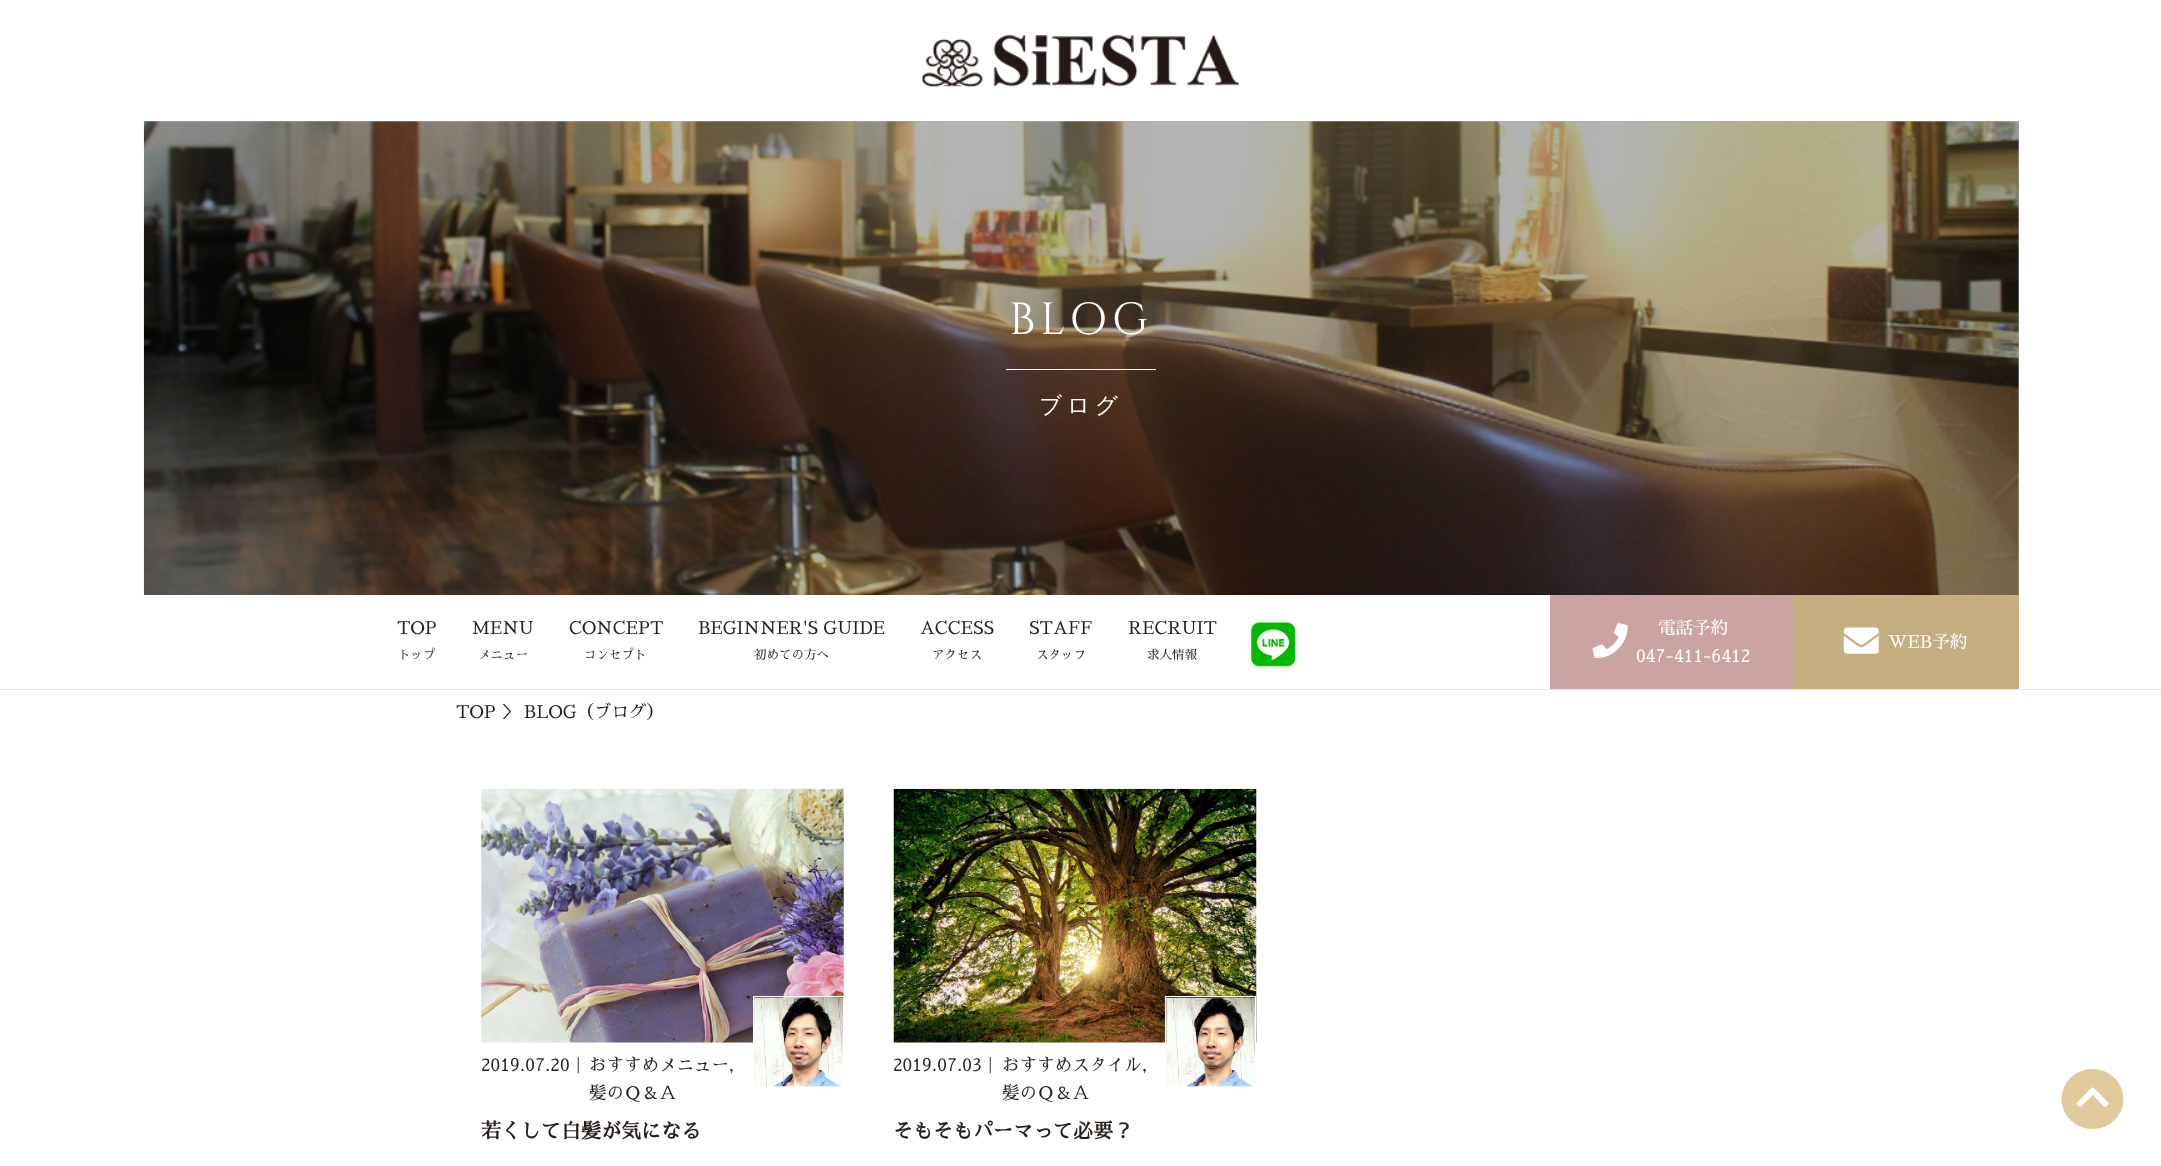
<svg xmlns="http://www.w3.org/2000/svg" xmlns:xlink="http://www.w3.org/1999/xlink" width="2161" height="1166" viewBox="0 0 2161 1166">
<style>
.cls-1{font:45px Cinzel;letter-spacing:5px;fill:#ffffff}
.cls-2{font:500 22.5px WenQuanYi Zen Hei;letter-spacing:5px;fill:#ffffff}
.cls-3{font:17.5px Sawarabi Mincho;fill:#261e1b}
.cls-4{font:12.5px Sawarabi Mincho;fill:#261e1b}
.cls-5{font:17.5px Sawarabi Mincho;fill:#ffffff}
.cls-6{font:bold 20px Sawarabi Mincho;fill:#261e1b}
</style>
<rect width="100%" height="100%" fill="#ffffff"/>
<rect fill="#b3b3b3" x="144" y="121" width="1875" height="474"/>
<rect fill="#e3e3e3" x="0" y="689" width="2161" height="1"/>
<image xlink:href="image0.png" x="922" y="35" width="317" height="52"/>
<image xlink:href="image1.png" x="143" y="121" width="1876" height="474"/>
<rect fill="#ffffff" x="1006" y="369" width="150" height="1"/>
<image xlink:href="image2.png" x="1251" y="622" width="44" height="45"/>
<rect fill="#cca3a3" x="1550" y="595" width="244" height="94"/>
<image xlink:href="image3.png" x="1592" y="623" width="36" height="36"/>
<rect fill="#c5ae80" x="1794" y="595" width="225" height="94"/>
<image xlink:href="image4.png" x="1843" y="627" width="36" height="27"/>
<ellipse fill="#e0ca9b" cx="2092.5" cy="1099" rx="31" ry="30"/>
<image xlink:href="image5.png" x="2076" y="1087" width="33" height="20"/>
<image xlink:href="image6.png" x="481" y="788" width="363" height="255"/>
<rect fill="none" stroke="#ffffff" x="753.5" y="996.5" width="90" height="91"/>
<image xlink:href="image7.png" x="753" y="997" width="90" height="90"/>
<image xlink:href="image8.png" x="893" y="788" width="364" height="255"/>
<rect fill="none" stroke="#ffffff" x="1165.5" y="996.5" width="90" height="91"/>
<image xlink:href="image9.png" x="1166" y="997" width="89" height="90"/>
<text class="cls-1" x="1009" y="334">BLOG</text>
<text class="cls-2" x="1039" y="413">ブログ</text>
<text class="cls-3" x="397" y="634">TOP</text>
<text class="cls-4" x="398" y="659">トップ</text>
<text class="cls-3" x="472" y="634">MENU</text>
<text class="cls-4" x="478" y="659">メニュー</text>
<text class="cls-3" x="569" y="634">CONCEPT</text>
<text class="cls-4" x="584" y="659">コンセプト</text>
<text class="cls-3" x="698" y="634">BEGINNER'S GUIDE</text>
<text class="cls-4" x="754" y="659">初めての方へ</text>
<text class="cls-3" x="920" y="634">ACCESS</text>
<text class="cls-4" x="932" y="659">アクセス</text>
<text class="cls-3" x="1029" y="634">STAFF</text>
<text class="cls-4" x="1036" y="659">スタッフ</text>
<text class="cls-3" x="1128" y="634">RECRUIT</text>
<text class="cls-4" x="1147" y="659">求人情報</text>
<text class="cls-5" x="1658" y="634">電話予約</text>
<text class="cls-5" x="1636" y="662">047-411-6412</text>
<text class="cls-5" x="1888" y="648">WEB予約</text>
<text class="cls-3" x="456" y="718">TOP ＞ BLOG（ブログ）</text>
<text class="cls-3" x="481" y="1071">2019.07.20｜</text>
<text class="cls-3"><tspan x="589" y="1071">おすすめメニュー,</tspan><tspan x="589" y="1099">髪のＱ＆Ａ</tspan></text>
<text class="cls-6" x="481" y="1138">若くして白髪が気になる</text>
<text class="cls-3" x="893" y="1071">2019.07.03｜</text>
<text class="cls-3"><tspan x="1002" y="1071">おすすめスタイル,</tspan><tspan x="1002" y="1099">髪のＱ＆Ａ</tspan></text>
<text class="cls-6" x="893" y="1138">そもそもパーマって必要？</text>
</svg>
